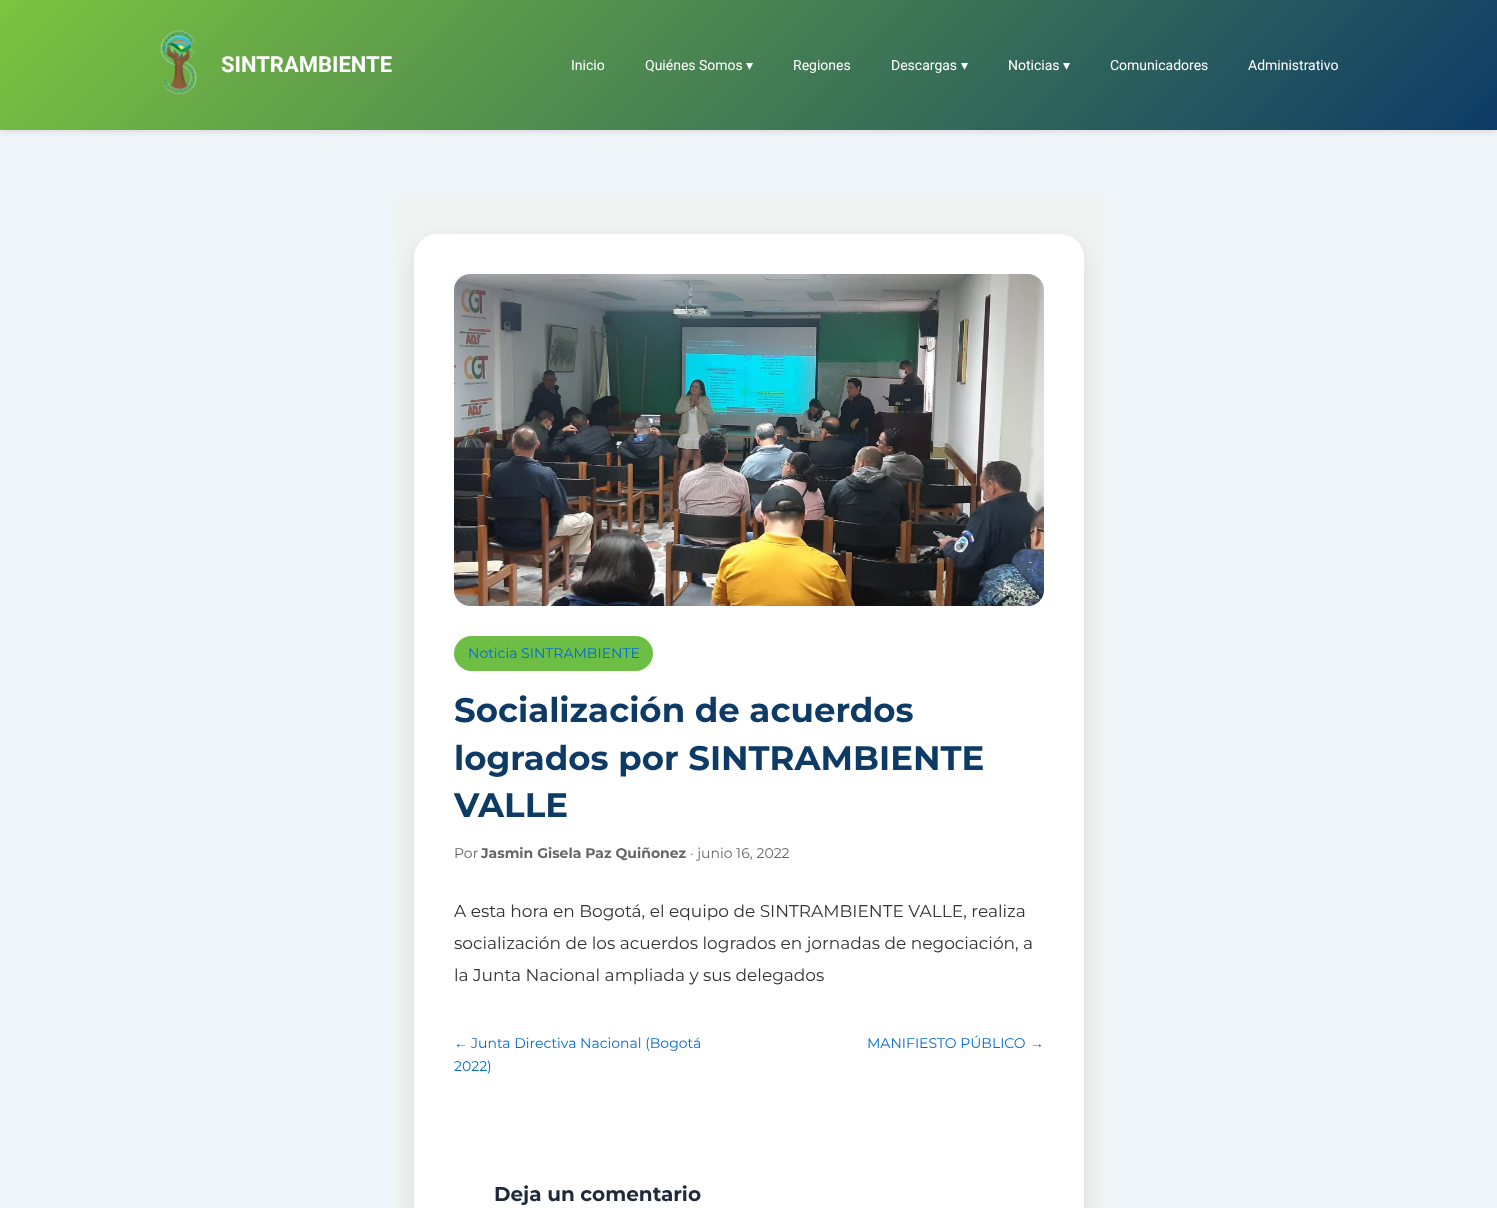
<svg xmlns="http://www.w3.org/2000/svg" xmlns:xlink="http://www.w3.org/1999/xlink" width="1497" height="1208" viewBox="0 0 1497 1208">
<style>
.cls-1{font:bold 22px Roboto;fill:#ffffff}
.cls-2{font:14px Roboto;fill:#ffffff}
.cls-3{font:14px DejaVu Sans;fill:#ffffff}
.cls-4{font:14px Montserrat;fill:#046bd2}
.cls-5{font:bold 34px Montserrat;fill:#0d3b66}
.cls-6{font:14px Montserrat;fill:#666666}
.cls-7{font:bold 14px Montserrat;fill:#666666}
.cls-8{font:17px Montserrat;fill:#333333}
.cls-9{font:14px Liberation Sans;fill:#046bd2}
.cls-10{font:bold 20px Montserrat;fill:#1e293b}
</style>
<defs>
<linearGradient id="g1" gradientUnits="userSpaceOnUse" x1="342" y1="-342" x2="1155" y2="472"><stop offset="0" stop-color="#7dc440"/><stop offset="1" stop-color="#0d3b66"/></linearGradient>
</defs>
<rect width="100%" height="100%" fill="#f0f5fa"/>
<rect fill="#000000" fill-opacity="0.1" filter="blur(3px)" x="0" y="2" width="1497" height="130"/>
<rect fill="url(#g1)" x="0" y="0" width="1497" height="130"/>
<image xlink:href="image0.png" x="160" y="30" width="37" height="65"/>
<rect fill="#f0f4f2" x="394" y="194" width="710" height="1014"/>
<rect fill="#000000" fill-opacity="0.1" filter="blur(12px)" x="414" y="242" width="670" height="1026" rx="24"/>
<rect fill="#ffffff" x="414" y="234" width="670" height="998" rx="24"/>
<image xlink:href="image1.png" x="454" y="274" width="590" height="332"/>
<rect fill="#6dbe45" x="454" y="636" width="199" height="35" rx="17.5"/>
<text class="cls-1" x="221" y="72">SINTRAMBIENTE</text>
<text class="cls-2" x="571" y="70">Inicio</text>
<text class="cls-2" x="645" y="70">Quiénes Somos</text>
<text class="cls-3" x="746" y="70">▾</text>
<text class="cls-2" x="793" y="70">Regiones</text>
<text class="cls-2" x="891" y="70">Descargas</text>
<text class="cls-3" x="961" y="70">▾</text>
<text class="cls-2" x="1008" y="70">Noticias</text>
<text class="cls-3" x="1063" y="70">▾</text>
<text class="cls-2" x="1110" y="70">Comunicadores</text>
<text class="cls-2" x="1248" y="70">Administrativo</text>
<text class="cls-4" x="468" y="658">Noticia SINTRAMBIENTE</text>
<text class="cls-5"><tspan x="454" y="722">Socialización de acuerdos</tspan><tspan x="454" y="770">logrados por SINTRAMBIENTE</tspan><tspan x="454" y="817">VALLE</tspan></text>
<text class="cls-6" x="454" y="858">Por</text>
<text class="cls-7" x="481" y="858">Jasmin Gisela Paz Quiñonez</text>
<text class="cls-6" x="690" y="858">· junio 16, 2022</text>
<text class="cls-8"><tspan x="454" y="917">A esta hora en Bogotá, el equipo de SINTRAMBIENTE VALLE, realiza</tspan><tspan x="454" y="949">socialización de los acuerdos logrados en jornadas de negociación, a</tspan><tspan x="454" y="981">la Junta Nacional ampliada y sus delegados</tspan></text>
<text class="cls-9" x="454" y="1048">←</text>
<text class="cls-4" x="471" y="1048">Junta Directiva Nacional (Bogotá</text>
<text class="cls-4" x="454" y="1071">2022)</text>
<text class="cls-4" x="867" y="1048">MANIFIESTO PÚBLICO</text>
<text class="cls-9" x="1030" y="1048">→</text>
<text class="cls-10" x="494" y="1201">Deja un comentario</text>
</svg>
